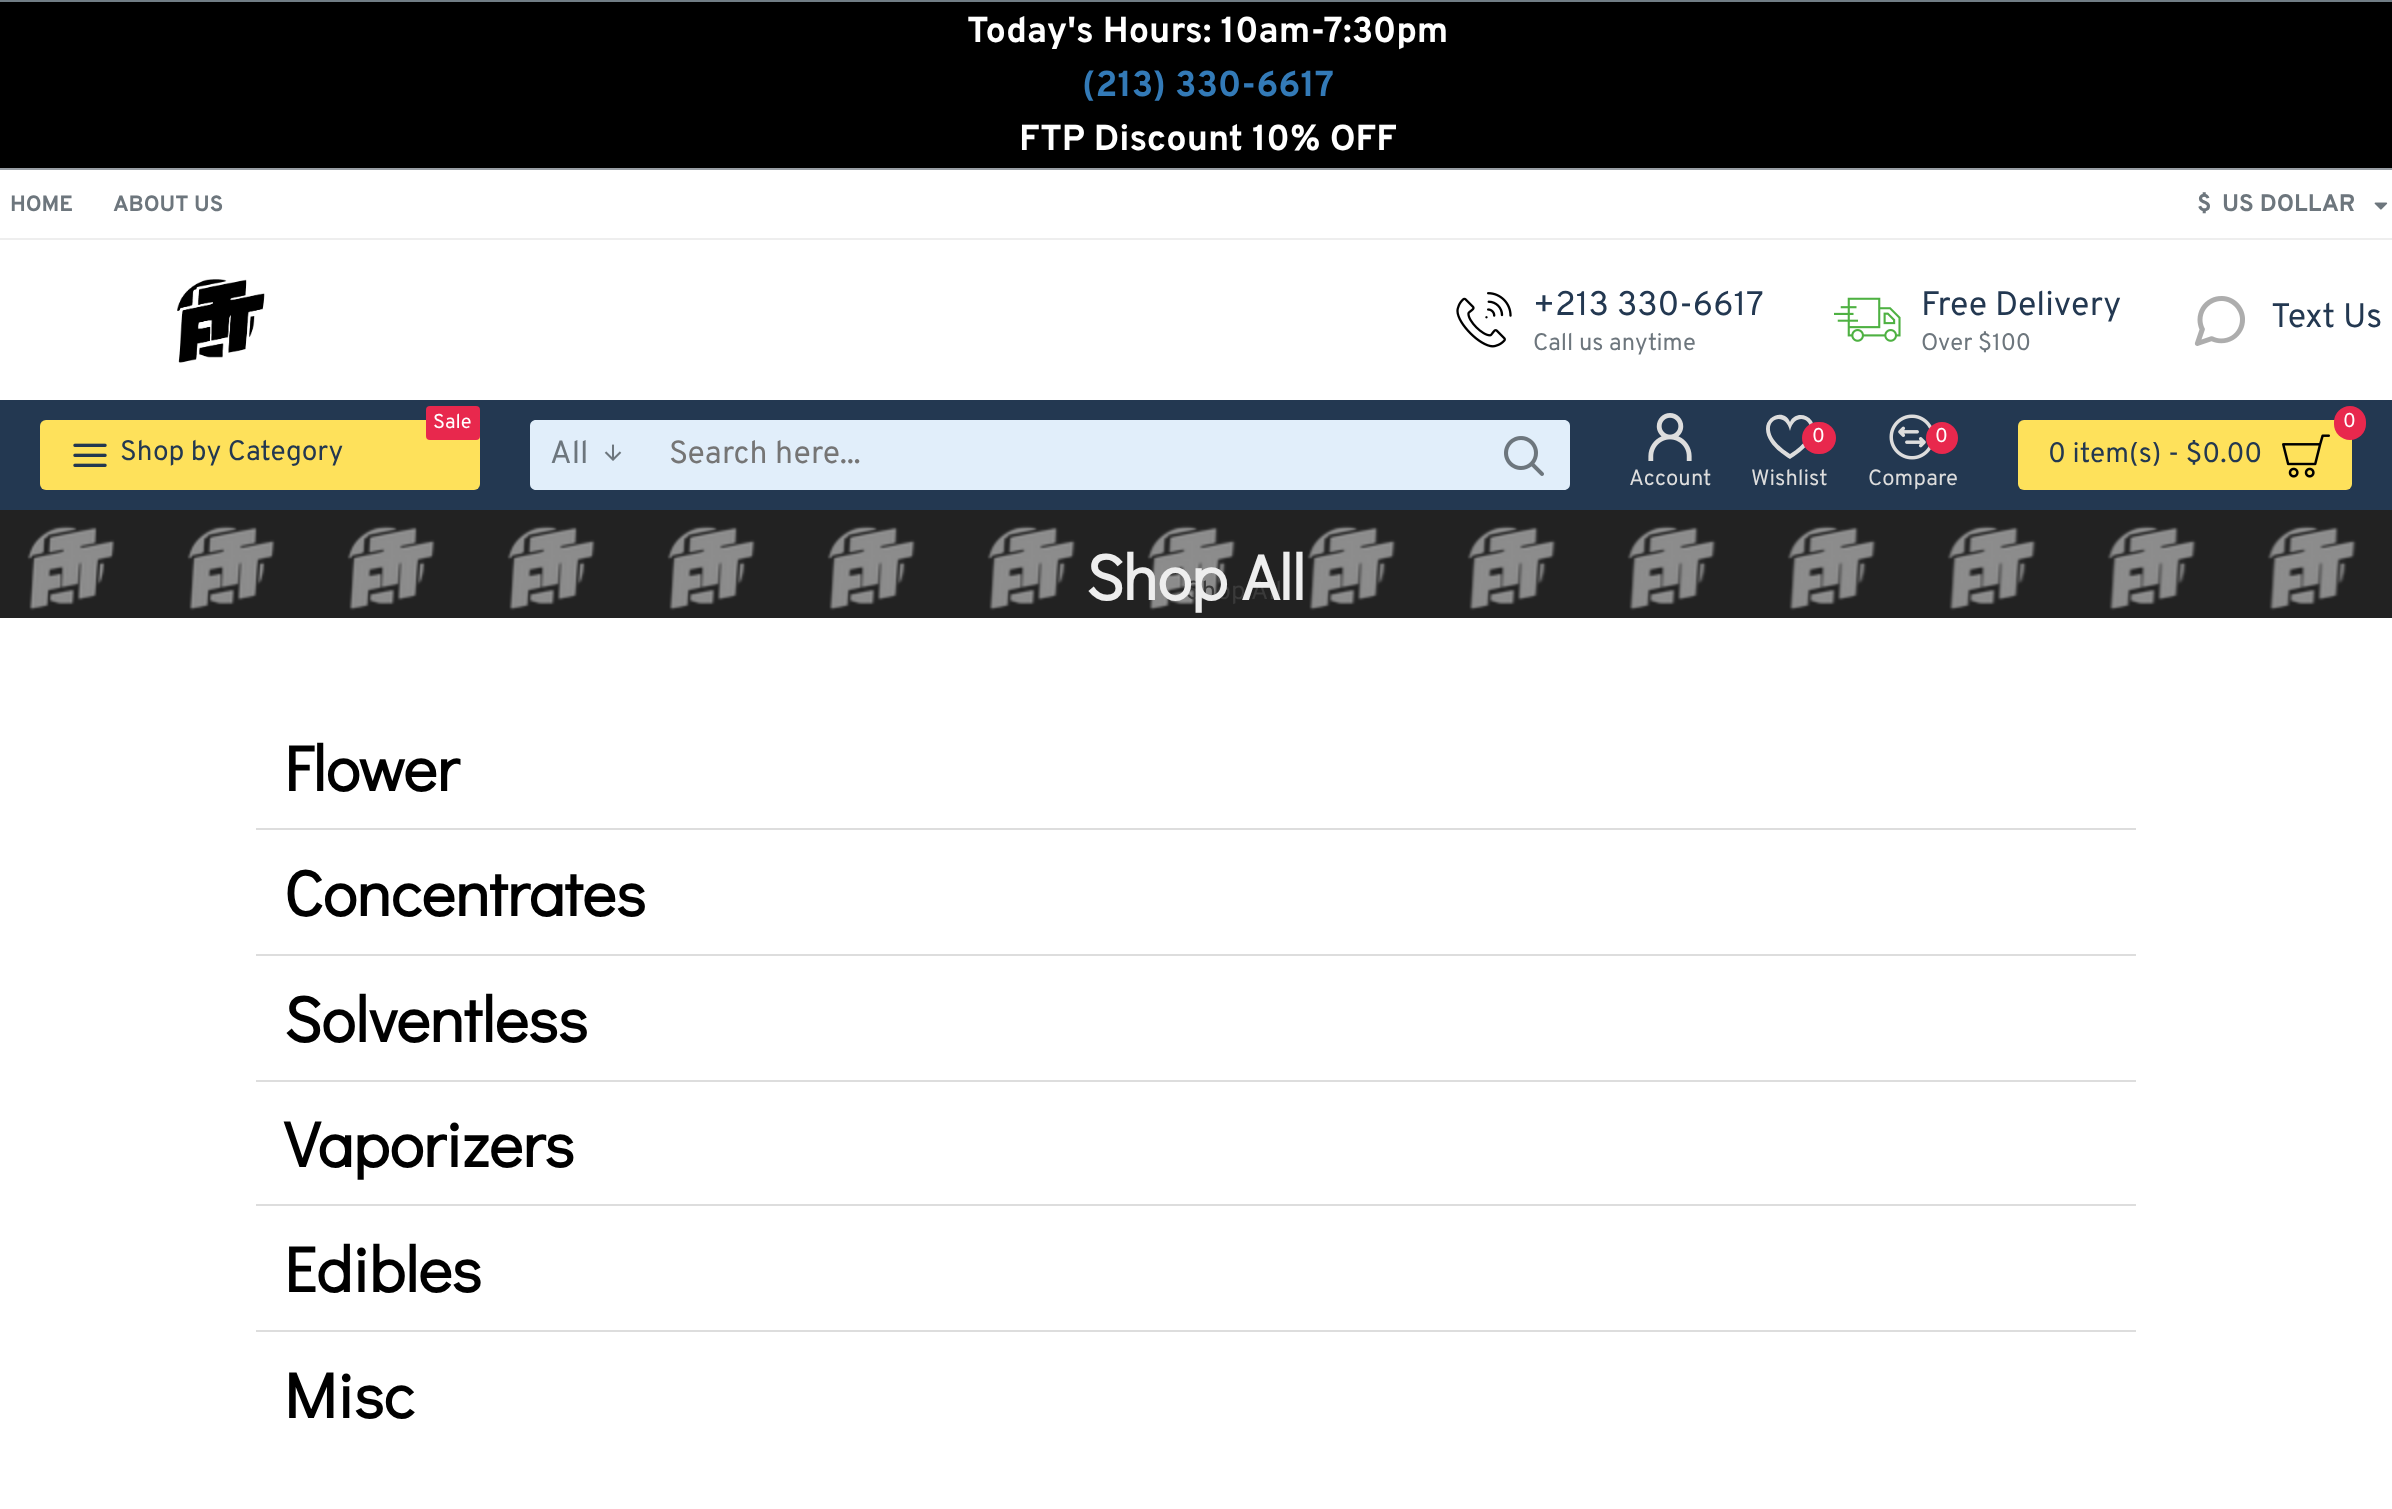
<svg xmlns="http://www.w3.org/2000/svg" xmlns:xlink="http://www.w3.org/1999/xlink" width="2392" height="1509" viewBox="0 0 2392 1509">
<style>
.cls-1{font:bold 36px Overpass;fill:#ffffff}
.cls-2{font:bold 36px Overpass;fill:#337ab7}
.cls-3{font:bold 22px Overpass;fill:#6d767d}
.cls-4{font:bold 24px Overpass;fill:#6d767d}
.cls-5{font:34px Overpass;fill:#233851}
.cls-6{font:23.75px Overpass;fill:#6d767d}
.cls-7{font:20px Overpass;fill:#ffffff}
.cls-8{font:28px Overpass;fill:#233851}
.cls-9{font:32px Overpass;fill:#6d767d}
.cls-10{font:32px Overpass;fill:#757575}
.cls-11{font:22px Overpass;fill:#dddddd}
.cls-12{font:bold 64px Didact Gothic;fill:#000000}
.cls-13{font:26px Overpass;fill:#3a3a3a}
.cls-14{font:bold 64px Didact Gothic;fill:#eeeeee}
</style>
<rect width="100%" height="100%" fill="#ffffff"/>
<rect fill="#000000" x="0" y="2" width="2392" height="166"/>
<rect fill="#717d85" x="0" y="0" width="2392" height="2"/>
<rect fill="#989ea4" x="0" y="168" width="2392" height="2"/>
<image xlink:href="image0.png" x="2374" y="202" width="14" height="8"/>
<image xlink:href="image1.png" x="177" y="279" width="88" height="84"/>
<image xlink:href="image2.png" x="1456" y="292" width="56" height="56"/>
<image xlink:href="image3.png" x="1834" y="297" width="67" height="45"/>
<image xlink:href="image4.png" x="2194" y="296" width="51" height="50"/>
<rect fill="#233851" x="0" y="400" width="2392" height="110"/>
<rect fill="#fee15b" x="40" y="420" width="440" height="70" rx="6"/>
<rect fill="#e8284d" x="426" y="406" width="54" height="34" rx="4"/>
<image xlink:href="image5.png" x="73" y="443" width="34" height="24"/>
<path fill="#e1eefa" d="M536 420H644V490H536C532.5 490 530 487.5 530 484V426C530 422.5 532.5 420 536 420Z"/>
<image xlink:href="image6.png" x="604" y="444" width="18" height="17"/>
<rect fill="#e1eefa" x="644" y="420" width="836" height="70"/>
<path fill="#e1eefa" d="M1480 420H1564C1567.5 420 1570 422.5 1570 426V484C1570 487.5 1567.5 490 1564 490H1480Z"/>
<image xlink:href="image7.png" x="1504" y="436" width="40" height="40"/>
<image xlink:href="image8.png" x="1648" y="413" width="44" height="48"/>
<path fill="#dddddd" d="M1790 431C1796 404 1832 427 1790 454C1748 427 1784 404 1790 431ZM1766 429C1766 442 1780 453 1790 459C1800 453 1814 442 1814 429C1814 426 1813 423 1812 421C1806 413 1794 413 1790 422C1785 409 1766 415 1766 429Z"/>
<rect fill="#e8284d" x="1802" y="422" width="34" height="32" rx="16"/>
<image xlink:href="image9.png" x="1889" y="414" width="43" height="46"/>
<circle fill="#e8284d" cx="1942" cy="438" r="16"/>
<rect fill="#fee15b" x="2018" y="420" width="334" height="70" rx="6"/>
<rect fill="#e8284d" x="2334" y="406" width="32" height="34" rx="16"/>
<image xlink:href="image10.png" x="2282" y="434" width="48" height="44"/>
<rect fill="#eeeeee" x="0" y="238" width="2392" height="2"/>
<rect fill="#dddddd" x="256" y="828" width="1880" height="2"/>
<rect fill="#dddddd" x="256" y="954" width="1880" height="2"/>
<rect fill="#dddddd" x="256" y="1080" width="1880" height="2"/>
<rect fill="#dddddd" x="256" y="1204" width="1880" height="2"/>
<rect fill="#dddddd" x="256" y="1330" width="1880" height="2"/>
<image xlink:href="image11.png" x="0" y="510" width="2392" height="108"/>
<text class="cls-1" x="967" y="42">Today's Hours: 10am-7:30pm</text>
<text class="cls-2" x="1082" y="96">(213) 330-6617</text>
<text class="cls-1" x="1019" y="150">FTP Discount 10% OFF</text>
<text class="cls-3" x="10" y="211">HOME</text>
<text class="cls-3" x="113" y="211">ABOUT US</text>
<text class="cls-4" x="2197" y="211">$</text>
<text class="cls-4" x="2222" y="211">US DOLLAR</text>
<text class="cls-5" x="1533" y="315">+213 330-6617</text>
<text class="cls-6" x="1533" y="350">Call us anytime</text>
<text class="cls-5" x="1921" y="315">Free Delivery</text>
<text class="cls-6" x="1921" y="350">Over $100</text>
<text class="cls-5" x="2271" y="327">Text Us</text>
<text class="cls-7" x="433" y="428">Sale</text>
<text class="cls-8" x="120" y="460">Shop by Category</text>
<text class="cls-9" x="550" y="463">All</text>
<text class="cls-10" x="669" y="463">Search here...</text>
<text class="cls-11" x="1629" y="485">Account</text>
<text class="cls-7" x="1812" y="442">0</text>
<text class="cls-11" x="1751" y="485">Wishlist</text>
<text class="cls-7" x="1935" y="442">0</text>
<text class="cls-11" x="1868" y="485">Compare</text>
<text class="cls-7" x="2343" y="427">0</text>
<text class="cls-8" x="2048" y="462">0 item(s) - $0.00</text>
<text class="cls-12"><tspan x="284" y="791">Flower</tspan><tspan x="284" y="916">Concentrates</tspan><tspan x="284" y="1042">Solventless</tspan><tspan x="284" y="1167">Vaporizers</tspan><tspan x="284" y="1292">Edibles</tspan><tspan x="284" y="1418">Misc</tspan></text>
<text class="cls-13" x="1186" y="599">Shop All</text>
<text class="cls-14" x="1086" y="600">Shop All</text>
</svg>
